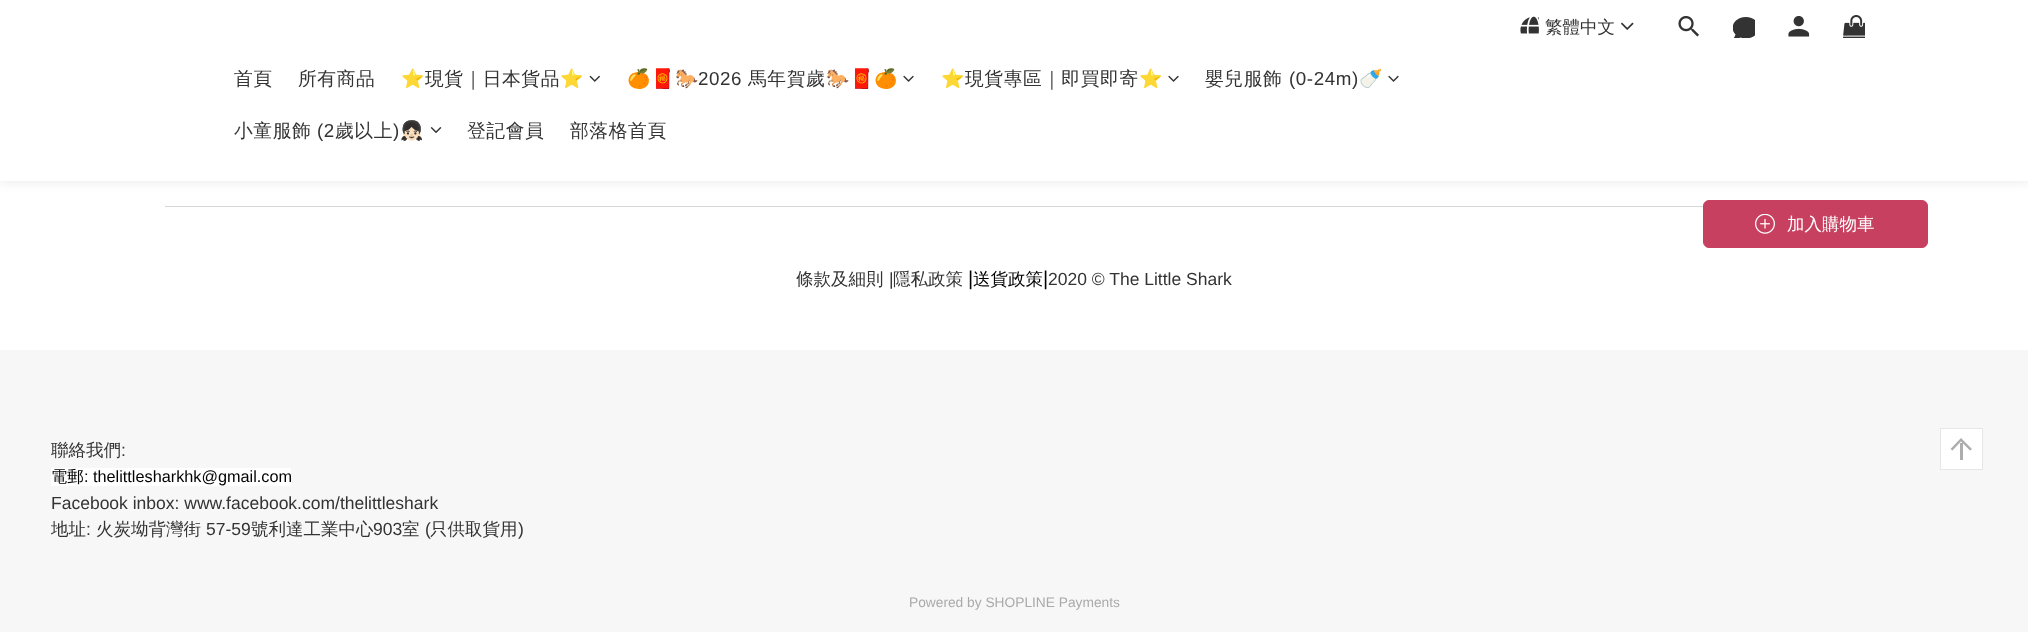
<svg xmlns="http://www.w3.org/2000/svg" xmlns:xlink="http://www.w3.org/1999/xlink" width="2028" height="632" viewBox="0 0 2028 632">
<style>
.cls-1{font:500 17.5px WenQuanYi Zen Hei;fill:#333333}
.cls-2{font:500 18.75px WenQuanYi Zen Hei;letter-spacing:0.6px;fill:#333333}
.cls-3{font:18.75px Noto Color Emoji;letter-spacing:0.6px;fill:#333333}
.cls-4{font:18.75px Liberation Sans;letter-spacing:0.6px;fill:#333333}
.cls-5{font:500 17.5px WenQuanYi Zen Hei;fill:#ffffff}
.cls-6{font:17.5px Liberation Sans;fill:#333333}
.cls-7{font:20px Liberation Sans;fill:#000000}
.cls-8{font:500 17.5px WenQuanYi Zen Hei;fill:#000000}
.cls-9{font:500 16.25px WenQuanYi Zen Hei;fill:#000000}
.cls-10{font:16.25px Liberation Sans;fill:#000000}
.cls-11{font:13.75px Liberation Sans;fill:#aaaaaa}
</style>
<rect width="100%" height="100%" fill="#ffffff"/>
<rect fill="#000000" fill-opacity="0.06" filter="blur(4px)" x="0" y="3" width="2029" height="181"/>
<rect fill="#ffffff" x="0" y="0" width="2028" height="181"/>
<image xlink:href="image0.png" x="1520" y="16" width="19" height="18"/>
<image xlink:href="image1.png" x="1621" y="22" width="13" height="8"/>
<image xlink:href="image2.png" x="1678" y="16" width="21" height="21"/>
<image xlink:href="image3.png" x="1733" y="17" width="22" height="21"/>
<image xlink:href="image4.png" x="1788" y="15" width="22" height="22"/>
<image xlink:href="image5.png" x="1843" y="15" width="22" height="23"/>
<image xlink:href="image6.png" x="589" y="75" width="11" height="7"/>
<image xlink:href="image7.png" x="903" y="75" width="11" height="7"/>
<image xlink:href="image7.png" x="1168" y="75" width="11" height="7"/>
<image xlink:href="image7.png" x="1388" y="75" width="11" height="7"/>
<image xlink:href="image8.png" x="430" y="127" width="12" height="6"/>
<rect fill="#c74060" stroke="#c74060" x="1703.5" y="200.5" width="224" height="47" rx="5.5"/>
<image xlink:href="image9.png" x="1755" y="214" width="20" height="20"/>
<rect fill="#d6d6d6" x="165" y="206" width="1538" height="1"/>
<rect fill="#f7f7f7" x="0" y="350" width="2028" height="282"/>
<rect fill="#ffffff" x="51" y="468" width="240" height="18"/>
<rect fill="#ffffff" stroke="#e6e6e6" x="1940.5" y="428.5" width="42" height="41"/>
<path fill="#adadad" d="M1961 438L1972 449L1970 450.5L1961 441.5ZM1950.5 449L1961 438V441.5L1952.5 450.5Z"/>
<rect fill="#999999" fill-opacity="0.8" x="1960" y="443" width="3" height="17"/>
<text class="cls-1" x="1545" y="33">繁體中文</text>
<text class="cls-2" x="234" y="85">首頁</text>
<text class="cls-2" x="298" y="85">所有商品</text>
<text class="cls-3" x="401" y="85">⭐</text>
<text class="cls-2" x="425" y="85">現貨｜日本貨品</text>
<text class="cls-3" x="560" y="85">⭐</text>
<text class="cls-3" x="627" y="85">🍊🧧🐎</text>
<text class="cls-4" x="698" y="85">2026</text>
<text class="cls-2" x="748" y="85">馬年賀歲</text>
<text class="cls-3" x="826" y="85">🐎🧧🍊</text>
<text class="cls-3" x="941" y="85">⭐</text>
<text class="cls-2" x="965" y="85">現貨專區｜即買即寄</text>
<text class="cls-3" x="1139" y="85">⭐</text>
<text class="cls-2" x="1205" y="85">嬰兒服飾</text>
<text class="cls-4" x="1289" y="85">(0-24m)</text>
<text class="cls-3" x="1359" y="85">🍼</text>
<text class="cls-2" x="234" y="137">小童服飾</text>
<text class="cls-4" x="317" y="137">(2</text>
<text class="cls-2" x="335" y="137">歲以上</text>
<text class="cls-4" x="393" y="137">)</text>
<text class="cls-3" x="400" y="137">👧🏻</text>
<text class="cls-2" x="467" y="137">登記會員</text>
<text class="cls-2" x="570" y="137">部落格首頁</text>
<text class="cls-5" x="1787" y="230">加入購物車</text>
<text class="cls-1" x="796" y="285">條款及細則</text>
<text class="cls-6" x="889" y="285">|</text>
<text class="cls-1" x="893" y="285">隱私政策</text>
<text class="cls-7" x="968" y="285">|</text>
<text class="cls-8" x="973" y="285">送貨政策</text>
<text class="cls-7" x="1043" y="285">|</text>
<text class="cls-6" x="1048" y="285">2020 © The Little Shark</text>
<text class="cls-1" x="51" y="456">聯絡我們</text>
<text class="cls-6" x="121" y="456">:</text>
<text class="cls-9" x="51" y="482">電郵</text>
<text class="cls-10" x="84" y="482">: thelittlesharkhk@gmail.com</text>
<text class="cls-6" x="51" y="509">Facebook inbox: www.facebook.com/thelittleshark</text>
<text class="cls-1" x="51" y="535">地址</text>
<text class="cls-6" x="86" y="535">:</text>
<text class="cls-1" x="96" y="535">火炭坳背灣街</text>
<text class="cls-6" x="206" y="535">57-59</text>
<text class="cls-1" x="251" y="535">號利達工業中心</text>
<text class="cls-6" x="373" y="535">903</text>
<text class="cls-1" x="402" y="535">室</text>
<text class="cls-6" x="425" y="535">(</text>
<text class="cls-1" x="430" y="535">只供取貨用</text>
<text class="cls-6" x="518" y="535">)</text>
<text class="cls-11" x="909" y="607">Powered by SHOPLINE Payments</text>
</svg>
